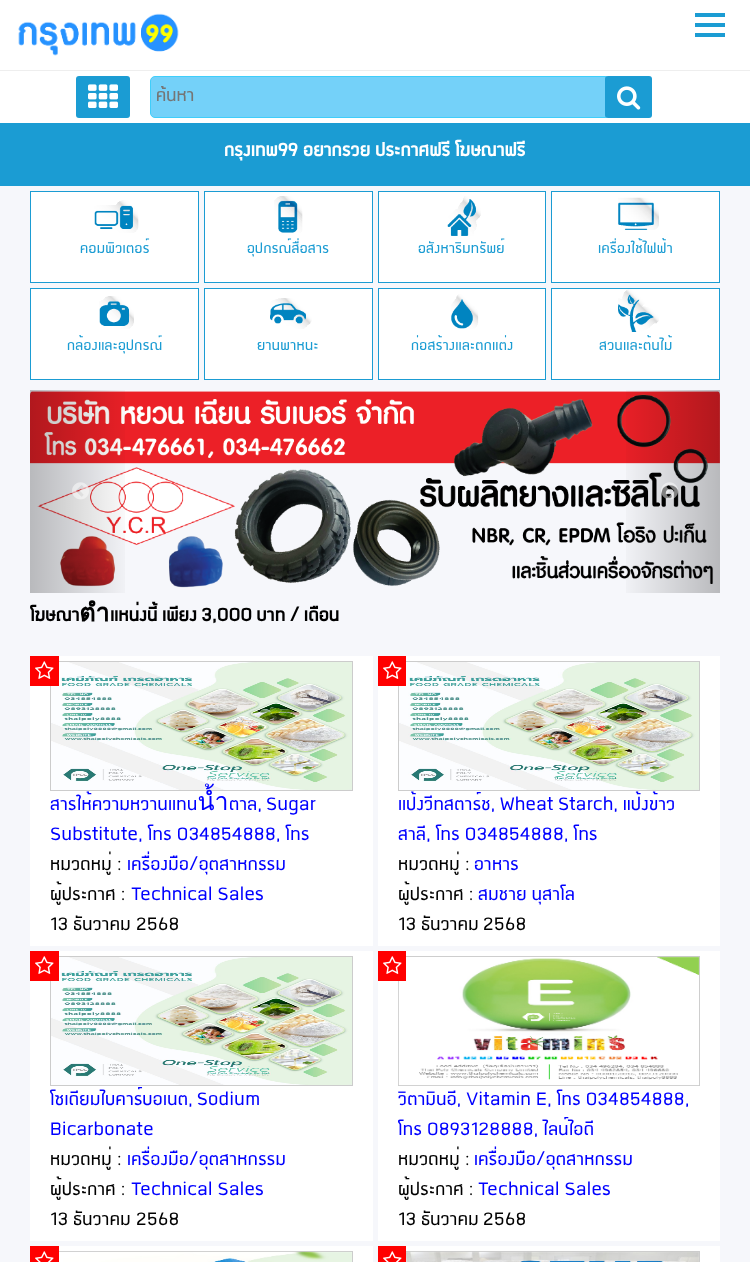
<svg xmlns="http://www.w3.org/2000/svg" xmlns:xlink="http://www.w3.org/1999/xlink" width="750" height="1262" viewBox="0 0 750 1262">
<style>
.cls-1{font:25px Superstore;fill:#757575}
.cls-2{font:bold 25px Superstore;letter-spacing:0.3px;fill:#ffffff}
.cls-3{font:20px Superstore;letter-spacing:0.3px;fill:#1b9cd3}
.cls-4{font:bold 25px Superstore;letter-spacing:0.3px;fill:#000000}
.cls-5{font:25px Superstore;letter-spacing:0.3px;fill:#0000ff}
.cls-6{font:25px Superstore;letter-spacing:0.3px;fill:#000000}
</style>
<defs>
<linearGradient id="g1" gradientUnits="userSpaceOnUse" x1="30" y1="492" x2="134" y2="492"><stop offset="0" stop-color="#000000" stop-opacity="0.25"/><stop offset="1" stop-color="#000000" stop-opacity="0"/></linearGradient>
<linearGradient id="g2" gradientUnits="userSpaceOnUse" x1="617" y1="492" x2="720" y2="492"><stop offset="0" stop-color="#000000" stop-opacity="0"/><stop offset="1" stop-color="#000000" stop-opacity="0.25"/></linearGradient>
<clipPath id="clip1"><rect x="156" y="86" width="448" height="22"/></clipPath>
</defs>
<rect width="100%" height="100%" fill="#f6f7fb"/>
<rect fill="#ffffff" x="0" y="0" width="750" height="123"/>
<image xlink:href="image0.png" x="18" y="13" width="161" height="43"/>
<rect fill="#1b9cd3" x="695" y="23" width="30" height="4"/>
<rect fill="#1b9cd3" x="695" y="13" width="30" height="4"/>
<rect fill="#1b9cd3" x="695" y="33" width="30" height="4"/>
<rect fill="#eeeeee" x="0" y="70" width="750" height="1"/>
<rect fill="#1b9cd3" x="76" y="76" width="54" height="42" rx="3"/>
<image xlink:href="image1.png" x="88" y="84" width="30" height="24"/>
<rect fill="#74d1f9" stroke="#3fcefb" x="150.5" y="76.5" width="459" height="41" rx="4.5"/>
<rect fill="#1b9cd3" x="605" y="76" width="47" height="42" rx="3"/>
<image xlink:href="image2.png" x="617" y="86" width="24" height="24"/>
<rect fill="#1b9cd3" x="0" y="123" width="750" height="63"/>
<rect fill="#ffffff" stroke="#1b9cd3" x="30.5" y="191.5" width="168" height="91"/>
<image xlink:href="image3.png" x="94" y="200" width="45" height="33"/>
<rect fill="#ffffff" stroke="#1b9cd3" x="30.5" y="288.5" width="168" height="91"/>
<image xlink:href="image4.png" x="99" y="296" width="35" height="33"/>
<rect fill="#ffffff" stroke="#1b9cd3" x="204.5" y="191.5" width="168" height="91"/>
<image xlink:href="image5.png" x="274" y="196" width="29" height="37"/>
<rect fill="#ffffff" stroke="#1b9cd3" x="204.5" y="288.5" width="168" height="91"/>
<image xlink:href="image6.png" x="270" y="298" width="42" height="31"/>
<rect fill="#ffffff" stroke="#1b9cd3" x="378.5" y="191.5" width="167" height="91"/>
<image xlink:href="image7.png" x="447" y="196" width="34" height="40"/>
<rect fill="#ffffff" stroke="#1b9cd3" x="378.5" y="288.5" width="167" height="91"/>
<image xlink:href="image8.png" x="451" y="294" width="28" height="35"/>
<rect fill="#ffffff" stroke="#1b9cd3" x="551.5" y="191.5" width="168" height="91"/>
<image xlink:href="image9.png" x="618" y="197" width="41" height="33"/>
<rect fill="#ffffff" stroke="#1b9cd3" x="551.5" y="288.5" width="168" height="91"/>
<image xlink:href="image10.png" x="618" y="289" width="41" height="43"/>
<image xlink:href="image13.png" x="30" y="391" width="690" height="197"/>
<rect fill="url(#g1)" x="30" y="390" width="95" height="203"/>
<image xlink:href="image11.png" x="72" y="482" width="17" height="18"/>
<rect fill="url(#g2)" x="626" y="390" width="94" height="203"/>
<image xlink:href="image12.png" x="661" y="482" width="17" height="18"/>
<rect fill="#ffffff" x="30" y="656" width="343" height="290"/>
<rect fill="none" stroke="#cccccc" x="50.5" y="661.5" width="302" height="129"/>
<image xlink:href="image15.png" x="51" y="662" width="301" height="128"/>
<rect fill="#ff0000" x="30" y="656" width="29" height="30"/>
<image xlink:href="image14.png" x="35" y="661" width="19" height="18"/>
<rect fill="#ffffff" x="30" y="951" width="343" height="290"/>
<rect fill="none" stroke="#cccccc" x="50.5" y="956.5" width="302" height="129"/>
<image xlink:href="image15.png" x="51" y="957" width="301" height="128"/>
<rect fill="#ff0000" x="30" y="951" width="29" height="30"/>
<image xlink:href="image14.png" x="35" y="956" width="19" height="18"/>
<rect fill="#ffffff" x="59" y="1246" width="314" height="16"/>
<rect fill="none" stroke="#cccccc" x="50.5" y="1251.5" width="302" height="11"/>
<rect fill="#ff0000" x="30" y="1246" width="29" height="16"/>
<image xlink:href="image16.png" x="35" y="1251" width="19" height="11"/>
<image xlink:href="image17.png" x="59" y="1251" width="293" height="11"/>
<rect fill="#ffffff" x="378" y="656" width="342" height="290"/>
<rect fill="none" stroke="#cccccc" x="398.5" y="661.5" width="301" height="129"/>
<image xlink:href="image18.png" x="399" y="662" width="300" height="128"/>
<rect fill="#ff0000" x="378" y="656" width="28" height="30"/>
<image xlink:href="image14.png" x="383" y="661" width="19" height="18"/>
<rect fill="#ffffff" x="378" y="951" width="342" height="290"/>
<rect fill="none" stroke="#cccccc" x="398.5" y="956.5" width="301" height="129"/>
<image xlink:href="image19.png" x="398" y="956" width="302" height="130"/>
<rect fill="#ff0000" x="378" y="951" width="28" height="30"/>
<image xlink:href="image14.png" x="383" y="956" width="19" height="18"/>
<rect fill="#ffffff" x="406" y="1246" width="314" height="16"/>
<rect fill="none" stroke="#cccccc" x="398.5" y="1251.5" width="301" height="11"/>
<rect fill="#ff0000" x="378" y="1246" width="28" height="16"/>
<image xlink:href="image16.png" x="383" y="1251" width="19" height="11"/>
<image xlink:href="image20.png" x="406" y="1251" width="293" height="11"/>
<g clip-path="url(#clip1)">
<text class="cls-1" x="156" y="101">ค้นหา</text>
</g>
<text class="cls-2" x="224" y="156">กรุงเทพ99 อยากรวย ประกาศฟรี โฆษณาฟรี</text>
<text class="cls-3" x="80" y="253">คอมพิวเตอร์</text>
<text class="cls-3" x="67" y="350">กล้องและอุปกรณ์</text>
<text class="cls-3" x="247" y="253">อุปกรณ์สื่อสาร</text>
<text class="cls-3" x="257" y="350">ยานพาหนะ</text>
<text class="cls-3" x="418" y="253">อสังหาริมทรัพย์</text>
<text class="cls-3" x="411" y="350">ก่อสร้างและตกแต่ง</text>
<text class="cls-3" x="598" y="253">เครื่องใช้ไฟฟ้า</text>
<text class="cls-3" x="599" y="350">สวนและต้นไม้</text>
<text class="cls-4" x="30" y="621" word-spacing="-0.5">โฆษณาตำแหน่งนี้ เพียง 3,000 บาท / เดือน</text>
<text class="cls-5"><tspan x="50" y="810" word-spacing="-1">สารให้ความหวานแทนน้ำตาล, Sugar</tspan><tspan x="50" y="840">Substitute, โทร 034854888, โทร</tspan></text>
<text class="cls-6" x="50" y="870">หมวดหมู่ :</text>
<text class="cls-5" x="127" y="870">เครื่องมือ/อุตสาหกรรม</text>
<text class="cls-6" x="50" y="900">ผู้ประกาศ :</text>
<text class="cls-5" x="131" y="900">Technical Sales</text>
<text class="cls-6" x="50" y="930">13 ธันวาคม</text>
<text class="cls-6" x="136" y="930">2568</text>
<text class="cls-5"><tspan x="50" y="1105" word-spacing="-1">โซเดียมไบคาร์บอเนต, Sodium</tspan><tspan x="50" y="1135">Bicarbonate</tspan></text>
<text class="cls-6" x="50" y="1165">หมวดหมู่ :</text>
<text class="cls-5" x="127" y="1165">เครื่องมือ/อุตสาหกรรม</text>
<text class="cls-6" x="50" y="1195">ผู้ประกาศ :</text>
<text class="cls-5" x="131" y="1195">Technical Sales</text>
<text class="cls-6" x="50" y="1225">13 ธันวาคม</text>
<text class="cls-6" x="136" y="1225">2568</text>
<text class="cls-5"><tspan x="398" y="810" word-spacing="-0.5">แป้งวีทสตาร์ช, Wheat Starch, แป้งข้าว</tspan><tspan x="398" y="840">สาลี, โทร 034854888, โทร</tspan></text>
<text class="cls-6" x="398" y="870">หมวดหมู่ :</text>
<text class="cls-5" x="474" y="870">อาหาร</text>
<text class="cls-6" x="398" y="900">ผู้ประกาศ :</text>
<text class="cls-5" x="478" y="900">สมชาย นุสาโล</text>
<text class="cls-6" x="398" y="930">13 ธันวาคม</text>
<text class="cls-6" x="483" y="930">2568</text>
<text class="cls-5"><tspan x="398" y="1105">วิตามินอี, Vitamin E, โทร 034854888,</tspan><tspan x="398" y="1135">โทร 0893128888, ไลน์ไอดี</tspan></text>
<text class="cls-6" x="398" y="1165">หมวดหมู่ :</text>
<text class="cls-5" x="474" y="1165">เครื่องมือ/อุตสาหกรรม</text>
<text class="cls-6" x="398" y="1195">ผู้ประกาศ :</text>
<text class="cls-5" x="478" y="1195">Technical Sales</text>
<text class="cls-6" x="398" y="1225">13 ธันวาคม</text>
<text class="cls-6" x="483" y="1225">2568</text>
</svg>
